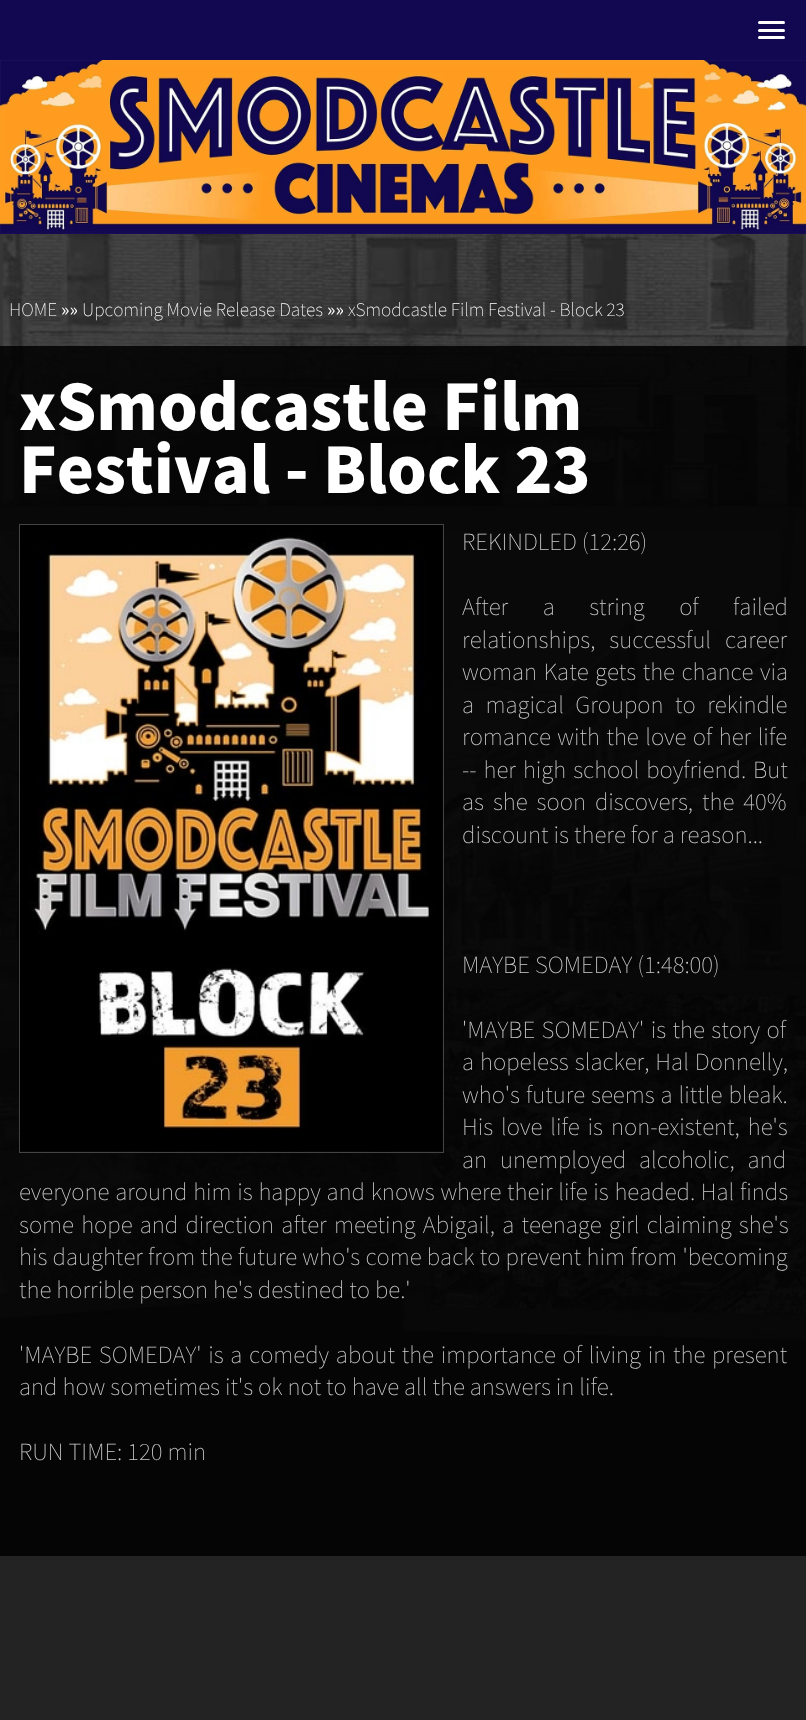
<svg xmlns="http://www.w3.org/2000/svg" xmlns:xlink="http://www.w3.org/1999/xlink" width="806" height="1720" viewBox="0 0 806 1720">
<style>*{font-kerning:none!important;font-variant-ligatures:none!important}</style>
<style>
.cls-1{font:100 17.5px Noto Sans JP;fill:#ffffff}
.cls-2{font:17.5px Noto Sans JP;fill:#ffffff}
.cls-3{font:900 62.5px Noto Sans JP;fill:#ffffff}
.cls-4{font:100 22.5px Noto Sans JP;fill:#cccccc}
</style>
<rect width="100%" height="100%" fill="#232323"/>
<image xlink:href="image0.png" x="0" y="234" width="806" height="1107"/>
<rect fill="#120851" x="0" y="0" width="806" height="234"/>
<rect fill="#ffffff" x="758" y="21" width="27" height="3" rx="1.5"/>
<rect fill="#ffffff" x="758" y="29" width="27" height="3" rx="1.5"/>
<rect fill="#ffffff" x="758" y="36" width="27" height="3" rx="1.5"/>
<image xlink:href="image1.png" x="0" y="60" width="806" height="174"/>
<rect fill="#000000" fill-opacity="0.85" x="0" y="346" width="806" height="1210"/>
<rect fill="none" stroke="#444444" x="19.5" y="524.5" width="424" height="628"/>
<image xlink:href="image2.png" x="20" y="525" width="423" height="626"/>
<text class="cls-1" x="9" y="316">HOME</text>
<text class="cls-2" x="61" y="316">»»</text>
<text class="cls-1" x="82" y="316">Upcoming Movie Release Dates</text>
<text class="cls-2" x="327" y="316">»»</text>
<text class="cls-1" x="348" y="316">xSmodcastle Film Festival - Block 23</text>
<text class="cls-3"><tspan x="19" y="430">xSmodcastle Film</tspan><tspan x="19" y="493">Festival - Block 23</tspan></text>
<text class="cls-4" x="462" y="550">REKINDLED (12:26)</text>
<text class="cls-4"><tspan x="462" y="615" word-spacing="29.5">After a string of failed</tspan><tspan x="462" y="648" word-spacing="9">relationships, successful career</tspan><tspan x="462" y="680" word-spacing="1.5">woman Kate gets the chance via</tspan><tspan x="462" y="713" word-spacing="6.5">a magical Groupon to rekindle</tspan><tspan x="462" y="745" word-spacing="1.5">romance with the love of her life</tspan><tspan x="462" y="778" word-spacing="2">-- her high school boyfriend. But</tspan><tspan x="462" y="810" word-spacing="4">as she soon discovers, the 40%</tspan><tspan x="462" y="843">discount is there for a reason...</tspan></text>
<text class="cls-4" x="462" y="973">MAYBE SOMEDAY (1:48:00)</text>
<text class="cls-4"><tspan x="462" y="1038" word-spacing="1.5">'MAYBE SOMEDAY' is the story of</tspan><tspan x="462" y="1070" word-spacing="1">a hopeless slacker, Hal Donnelly,</tspan><tspan x="462" y="1103" word-spacing="1">who's future seems a little bleak.</tspan><tspan x="462" y="1135" word-spacing="3">His love life is non-existent, he's</tspan><tspan x="462" y="1168" word-spacing="8">an unemployed alcoholic, and</tspan></text>
<text class="cls-4"><tspan x="19" y="1200" word-spacing="0.75">everyone around him is happy and knows where their life is headed. Hal finds</tspan><tspan x="19" y="1233" word-spacing="2.25">some hope and direction after meeting Abigail, a teenage girl claiming she's</tspan><tspan x="19" y="1265" word-spacing="0.25">his daughter from the future who's come back to prevent him from 'becoming</tspan><tspan x="19" y="1298">the horrible person he's destined to be.'</tspan></text>
<text class="cls-4"><tspan x="19" y="1363" word-spacing="1.75">'MAYBE SOMEDAY' is a comedy about the importance of living in the present</tspan><tspan x="19" y="1395">and how sometimes it's ok not to have all the answers in life.</tspan></text>
<text class="cls-4" x="19" y="1460">RUN TIME: 120 min</text>
</svg>
